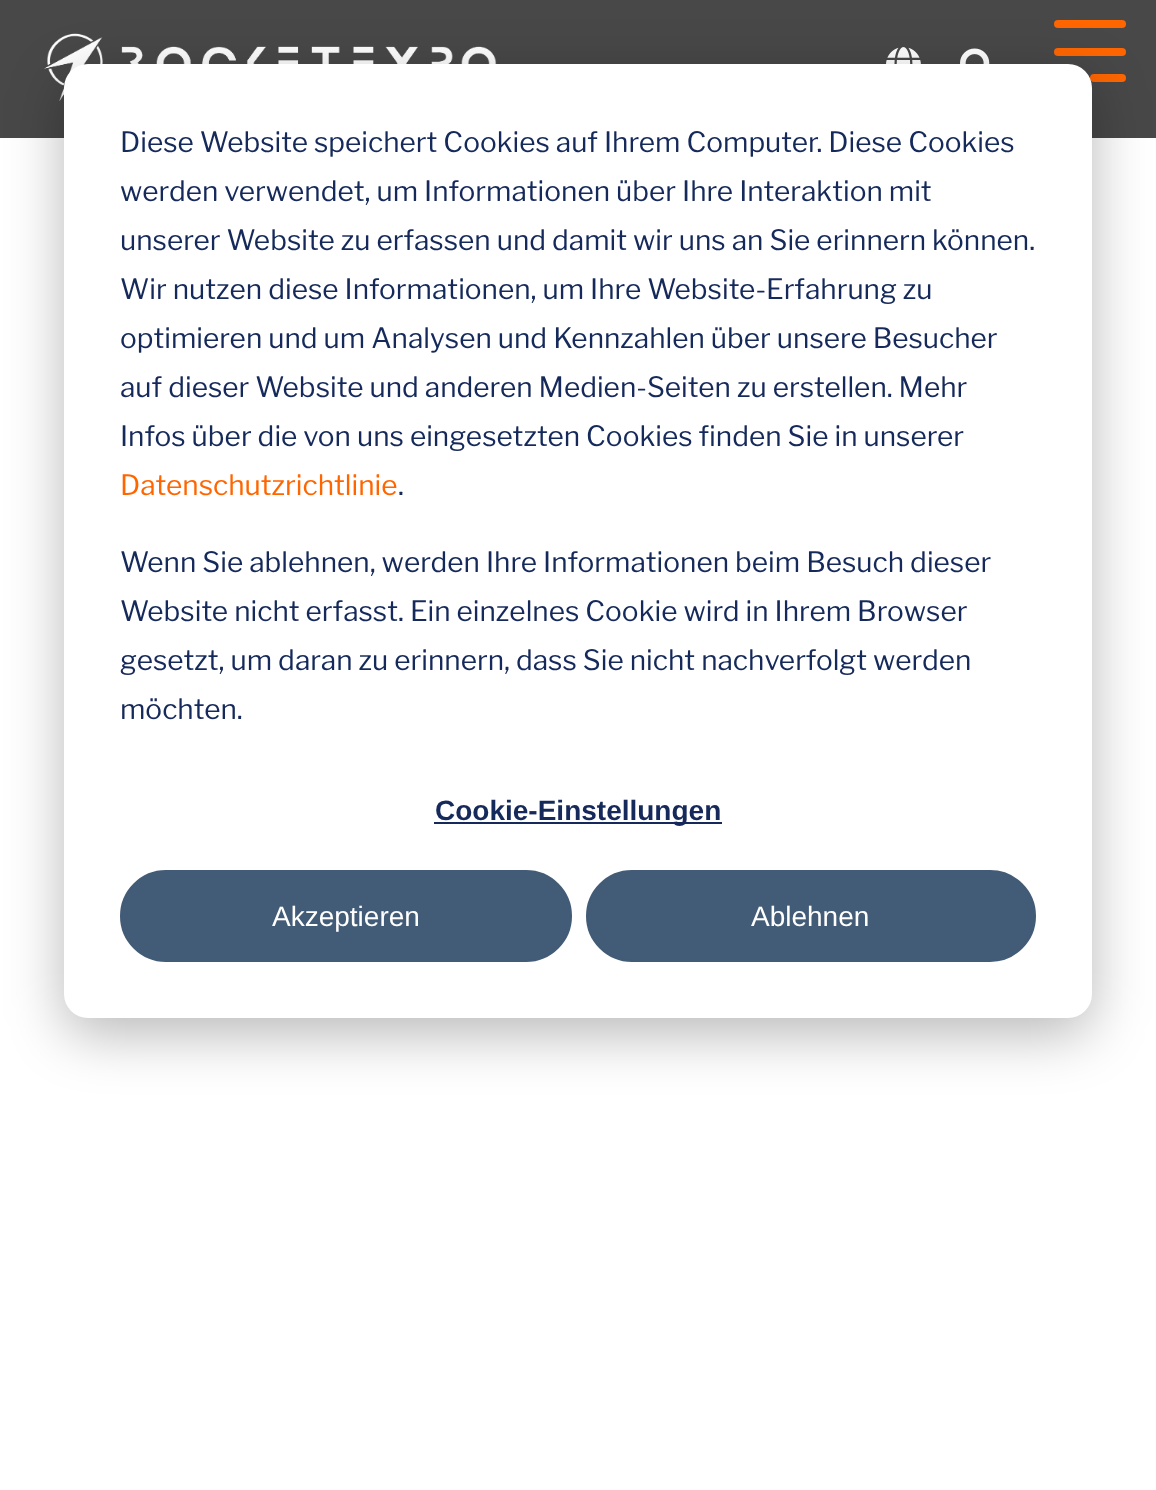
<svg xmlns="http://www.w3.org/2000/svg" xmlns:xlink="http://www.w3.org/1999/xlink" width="1156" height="1490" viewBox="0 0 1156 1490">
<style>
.cls-1{font:28px Libre Franklin;fill:#15295a}
.cls-2{font:28px Libre Franklin;fill:#ff6600}
.cls-3{font:bold 28px Liberation Sans;fill:#15295a}
.cls-4{font:28px Liberation Sans;fill:#ffffff}
</style>
<rect width="100%" height="100%" fill="#ffffff"/>
<rect fill="#484848" x="0" y="0" width="1156" height="138"/>
<image xlink:href="image0.png" x="44" y="33" width="453" height="68"/>
<image xlink:href="image1.png" x="886" y="47" width="35" height="17"/>
<image xlink:href="image2.png" x="960" y="48" width="30" height="16"/>
<rect fill="#ff6600" x="1054" y="20" width="72" height="8" rx="4"/>
<rect fill="#ff6600" x="1054" y="48" width="72" height="8" rx="4"/>
<rect fill="#ff6600" x="1090" y="74" width="36" height="8" rx="4"/>
<rect fill="#000000" fill-opacity="0.28" filter="blur(28px)" x="64" y="80" width="1028" height="954" rx="24"/>
<rect fill="#ffffff" x="64" y="64" width="1028" height="954" rx="24"/>
<rect fill="#15295a" x="434" y="822" width="288" height="2"/>
<rect fill="#425b76" stroke="#425b76" stroke-width="2" x="121" y="871" width="450" height="90" rx="45"/>
<rect fill="#425b76" stroke="#425b76" stroke-width="2" x="587" y="871" width="448" height="90" rx="45"/>
<text class="cls-1"><tspan x="120" y="152">Diese Website speichert Cookies auf Ihrem Computer. Diese Cookies</tspan><tspan x="120" y="201">werden verwendet, um Informationen über Ihre Interaktion mit</tspan><tspan x="120" y="250">unserer Website zu erfassen und damit wir uns an Sie erinnern können.</tspan><tspan x="120" y="299">Wir nutzen diese Informationen, um Ihre Website-Erfahrung zu</tspan><tspan x="120" y="348">optimieren und um Analysen und Kennzahlen über unsere Besucher</tspan><tspan x="120" y="397">auf dieser Website und anderen Medien-Seiten zu erstellen. Mehr</tspan><tspan x="120" y="446">Infos über die von uns eingesetzten Cookies finden Sie in unserer</tspan></text>
<text class="cls-2" x="120" y="495">Datenschutzrichtlinie</text>
<text class="cls-1" x="398" y="495">.</text>
<text class="cls-1"><tspan x="120" y="572">Wenn Sie ablehnen, werden Ihre Informationen beim Besuch dieser</tspan><tspan x="120" y="621">Website nicht erfasst. Ein einzelnes Cookie wird in Ihrem Browser</tspan><tspan x="120" y="670">gesetzt, um daran zu erinnern, dass Sie nicht nachverfolgt werden</tspan><tspan x="120" y="719">möchten.</tspan></text>
<text class="cls-3" x="435" y="820">Cookie-Einstellungen</text>
<text class="cls-4" x="272" y="926">Akzeptieren</text>
<text class="cls-4" x="751" y="926">Ablehnen</text>
</svg>
